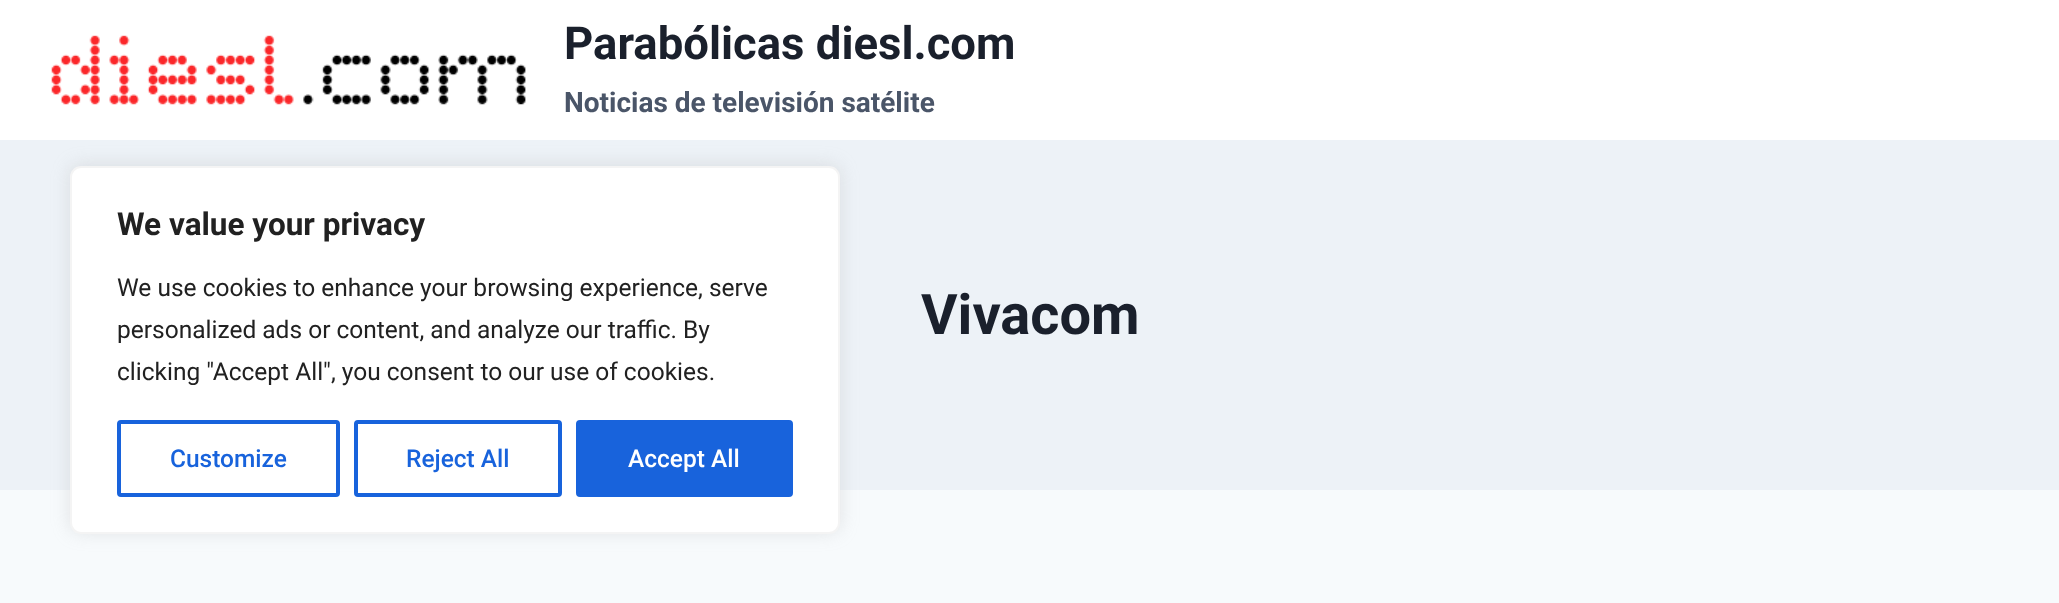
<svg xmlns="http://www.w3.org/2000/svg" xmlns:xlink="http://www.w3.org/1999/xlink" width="2059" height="603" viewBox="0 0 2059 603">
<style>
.cls-1{font:bold 31.5px Roboto;fill:#212121}
.cls-2{font:24.5px Roboto;fill:#212121}
.cls-3{font:500 24.5px Roboto;fill:#1863dc}
.cls-4{font:500 24.5px Roboto;fill:#ffffff}
.cls-5{font:bold 45.5px Roboto;fill:#1a202c}
.cls-6{font:bold 28px Roboto;fill:#4a5568}
.cls-7{font:bold 56px Roboto;fill:#1a202c}
</style>
<rect width="100%" height="100%" fill="#f7fafc"/>
<rect fill="#ffffff" x="0" y="0" width="2059" height="140"/>
<rect fill="#edf2f7" x="0" y="140" width="2059" height="350"/>
<rect fill="#acabab" fill-opacity="0.3" filter="blur(9px)" x="70" y="165" width="770" height="367" rx="11"/>
<rect fill="#ffffff" stroke="#f4f4f4" stroke-width="2" x="71" y="167" width="768" height="366" rx="10"/>
<rect fill="none" stroke="#1863dc" stroke-width="4" x="119" y="422" width="219" height="73" rx="2"/>
<rect fill="none" stroke="#1863dc" stroke-width="4" x="356" y="422" width="204" height="73" rx="2"/>
<rect fill="#1863dc" stroke="#1863dc" stroke-width="4" x="578" y="422" width="213" height="73" rx="2"/>
<image xlink:href="image0.png" x="51" y="35" width="475" height="70"/>
<text class="cls-1" x="117" y="235">We value your privacy</text>
<text class="cls-2"><tspan x="117" y="296">We use cookies to enhance your browsing experience, serve</tspan><tspan x="117" y="338">personalized ads or content, and analyze our traffic. By</tspan><tspan x="117" y="380">clicking "Accept All", you consent to our use of cookies.</tspan></text>
<text class="cls-3" x="170" y="467">Customize</text>
<text class="cls-3" x="406" y="467">Reject All</text>
<text class="cls-4" x="628" y="467">Accept All</text>
<text class="cls-5" x="564" y="59">Parabólicas diesl.com</text>
<text class="cls-6" x="564" y="112">Noticias de televisión satélite</text>
<text class="cls-7" x="921" y="334">Vivacom</text>
</svg>
